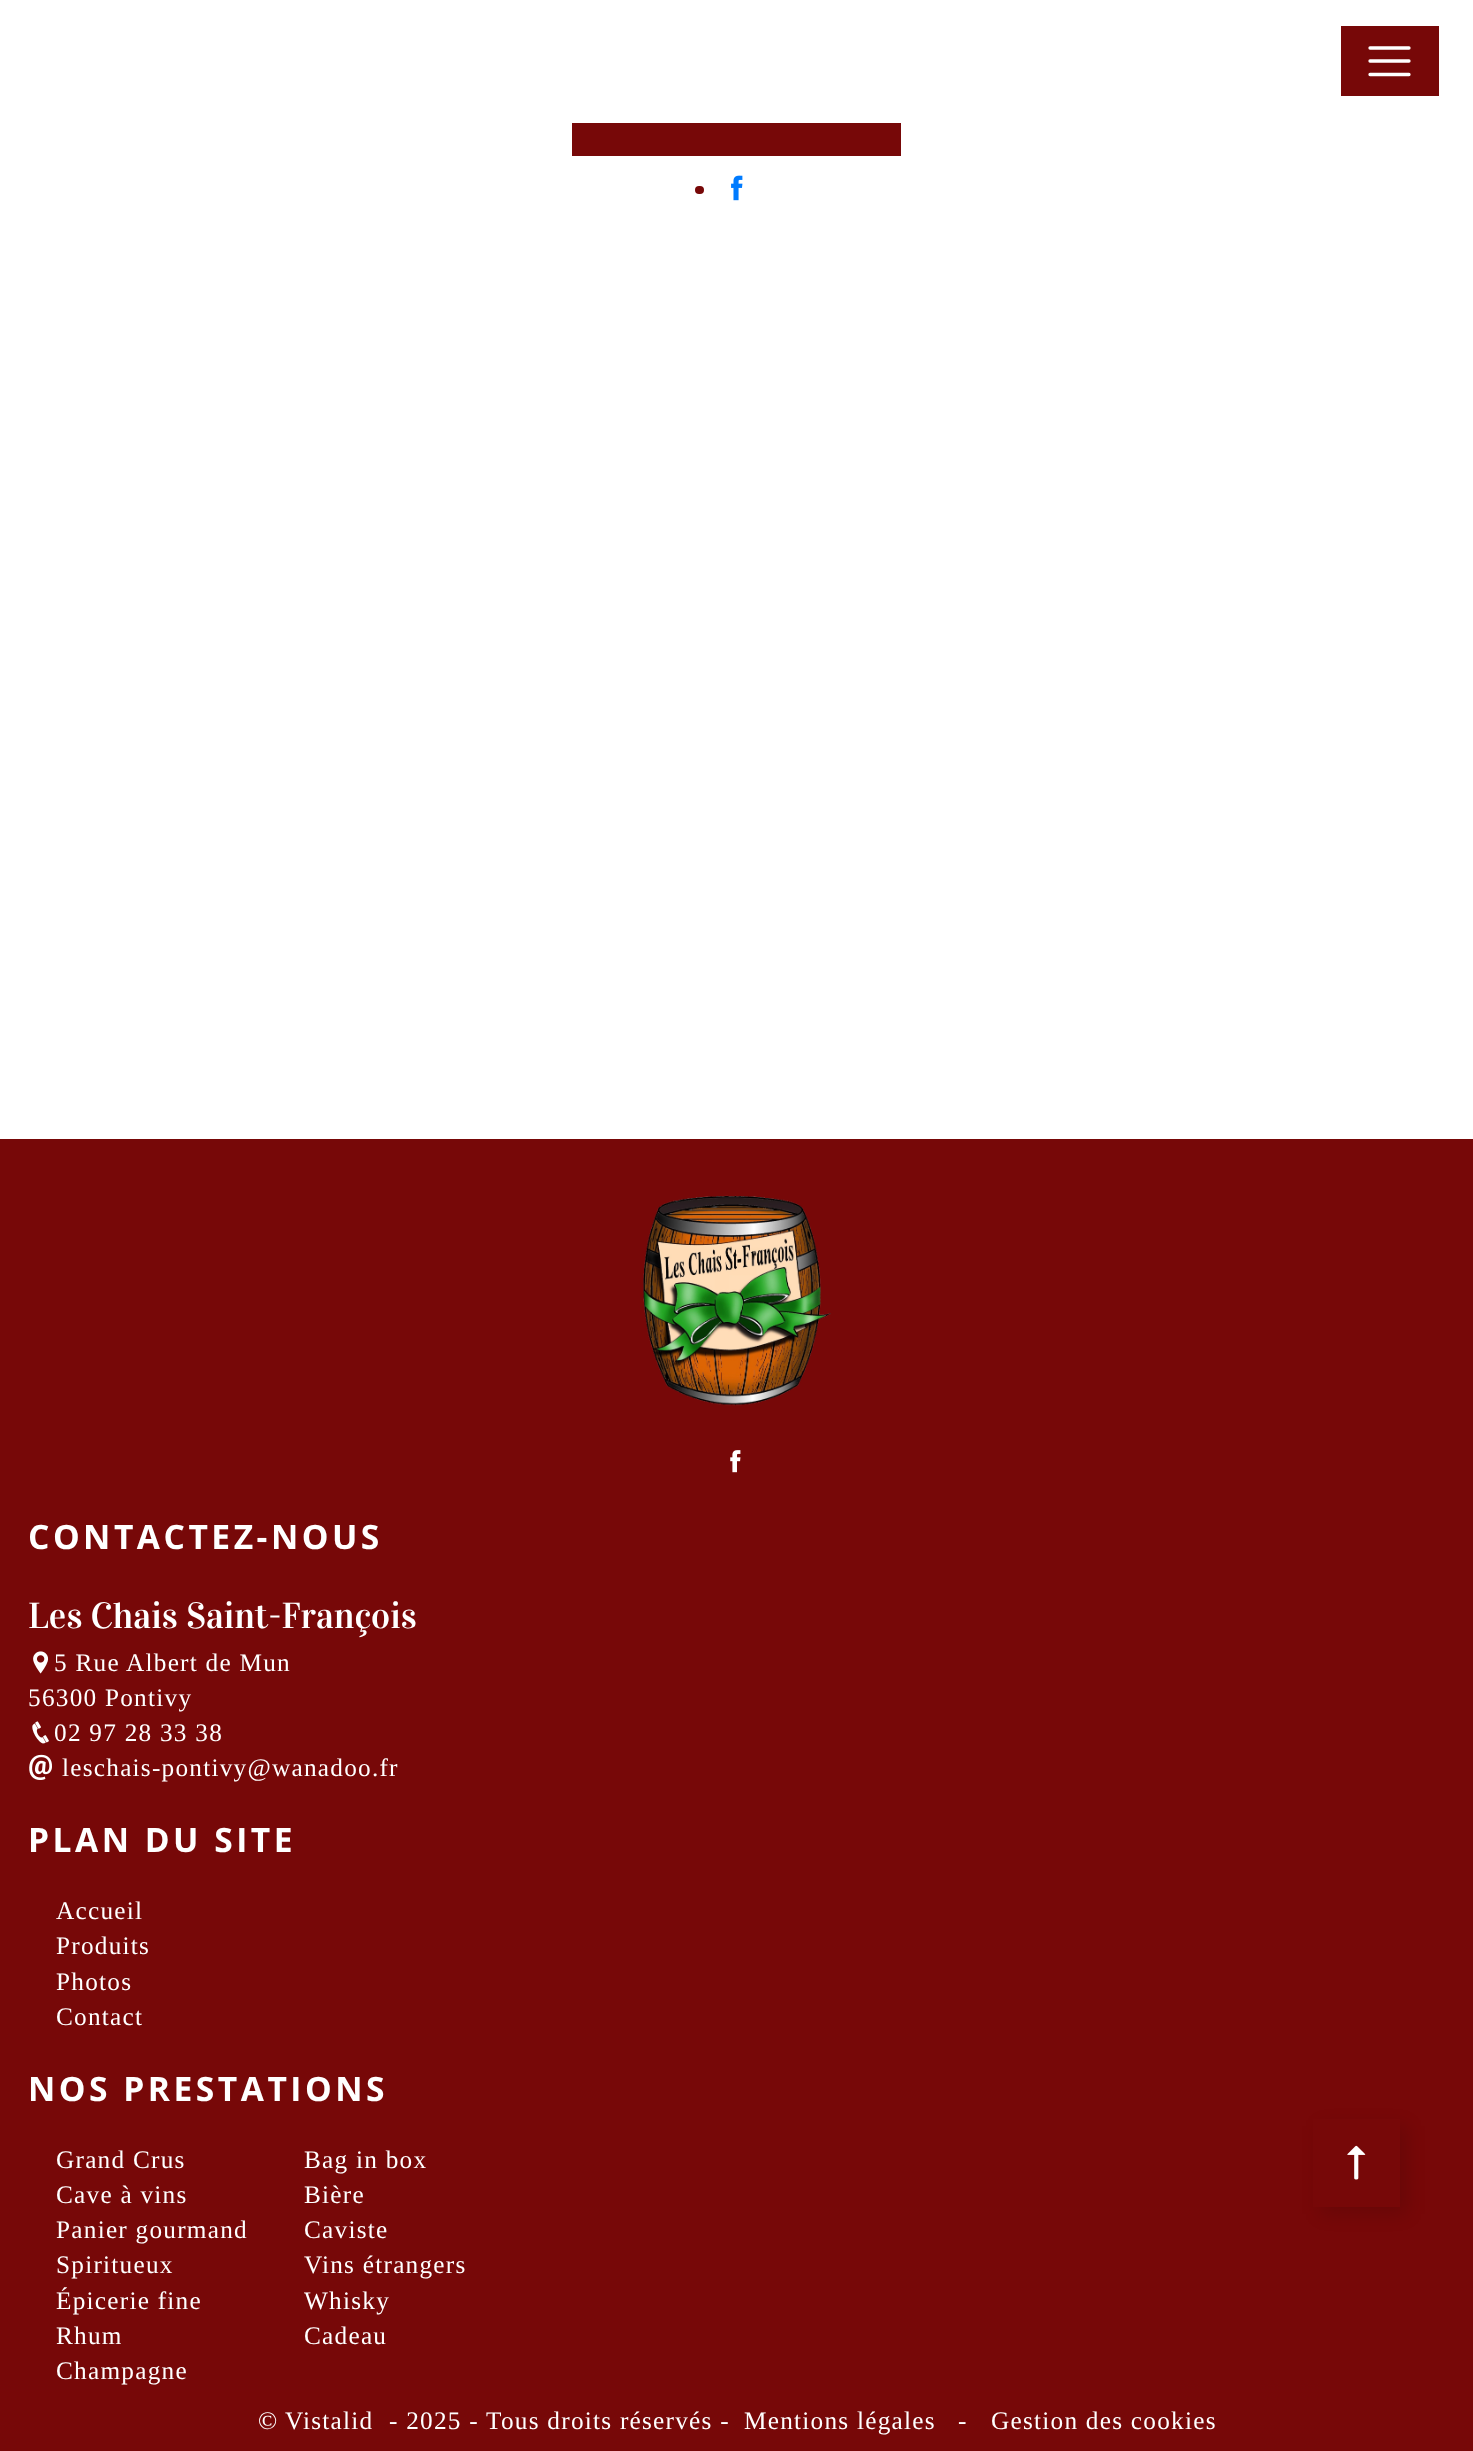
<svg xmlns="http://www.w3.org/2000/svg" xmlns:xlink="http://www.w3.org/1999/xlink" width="1473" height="2451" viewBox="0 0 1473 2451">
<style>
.cls-1{font:bold 33.6px Open Sans;letter-spacing:3.5px;fill:#ffffff}
.cls-2{font:36.4px Vidaloka;fill:#ffffff}
.cls-3{font:25.25px Liberation Serif;letter-spacing:1.25px;fill:#ffffff}
</style>
<rect width="100%" height="100%" fill="#ffffff"/>
<rect fill="#770808" x="1341" y="26" width="98" height="70"/>
<path fill="none" stroke="#ffffff" stroke-width="3.3" stroke-linecap="round" d="M1370 48H1409M1370 61H1409M1370 74.5H1409"/>
<rect fill="#770808" x="572" y="123" width="329" height="33"/>
<rect fill="#770808" x="695" y="186" width="9" height="8" rx="4"/>
<image xlink:href="image0.png" x="731" y="175" width="12" height="26"/>
<rect fill="#770808" x="0" y="1139" width="1473" height="1312"/>
<image xlink:href="image1.png" x="643" y="1195" width="188" height="211"/>
<image xlink:href="image2.png" x="730" y="1450" width="11" height="23"/>
<image xlink:href="image3.png" x="33" y="1651" width="16" height="23"/>
<image xlink:href="image4.png" x="32" y="1721" width="17" height="23"/>
<image xlink:href="image5.png" x="29" y="1754" width="23" height="26"/>
<rect fill="#000000" fill-opacity="0.12" filter="blur(9px)" x="1320" y="2126" width="87" height="88"/>
<rect fill="#770808" x="1313" y="2119" width="87" height="88"/>
<image xlink:href="image6.png" x="1347" y="2145" width="19" height="35"/>
<text class="cls-1" x="28" y="1549">CONTACTEZ-NOUS</text>
<text class="cls-2" x="28" y="1628">Les Chais Saint-François</text>
<text class="cls-3" x="54" y="1671">5 Rue Albert de Mun</text>
<text class="cls-3" x="28" y="1706">56300 Pontivy</text>
<text class="cls-3" x="54" y="1741">02 97 28 33 38</text>
<text class="cls-3" x="62" y="1776">leschais-pontivy@wanadoo.fr</text>
<text class="cls-1" x="28" y="1852">PLAN DU SITE</text>
<text class="cls-3"><tspan x="56" y="1919">Accueil</tspan><tspan x="56" y="1954">Produits</tspan><tspan x="56" y="1990">Photos</tspan><tspan x="56" y="2025">Contact</tspan></text>
<text class="cls-1" x="28" y="2101">NOS PRESTATIONS</text>
<text class="cls-3"><tspan x="56" y="2168">Grand Crus</tspan><tspan x="56" y="2203">Cave à vins</tspan><tspan x="56" y="2238">Panier gourmand</tspan><tspan x="56" y="2273">Spiritueux</tspan><tspan x="56" y="2309">Épicerie fine</tspan><tspan x="56" y="2344">Rhum</tspan><tspan x="56" y="2379">Champagne</tspan></text>
<text class="cls-3"><tspan x="304" y="2168">Bag in box</tspan><tspan x="304" y="2203">Bière</tspan><tspan x="304" y="2238">Caviste</tspan><tspan x="304" y="2273">Vins étrangers</tspan><tspan x="304" y="2309">Whisky</tspan><tspan x="304" y="2344">Cadeau</tspan></text>
<text class="cls-3" x="258" y="2429">©</text>
<text class="cls-3" x="285" y="2429">Vistalid</text>
<text class="cls-3" x="389" y="2429">- 2025 - Tous droits réservés -</text>
<text class="cls-3" x="744" y="2429">Mentions légales</text>
<text class="cls-3" x="958" y="2429">-</text>
<text class="cls-3" x="991" y="2429">Gestion des cookies</text>
</svg>
